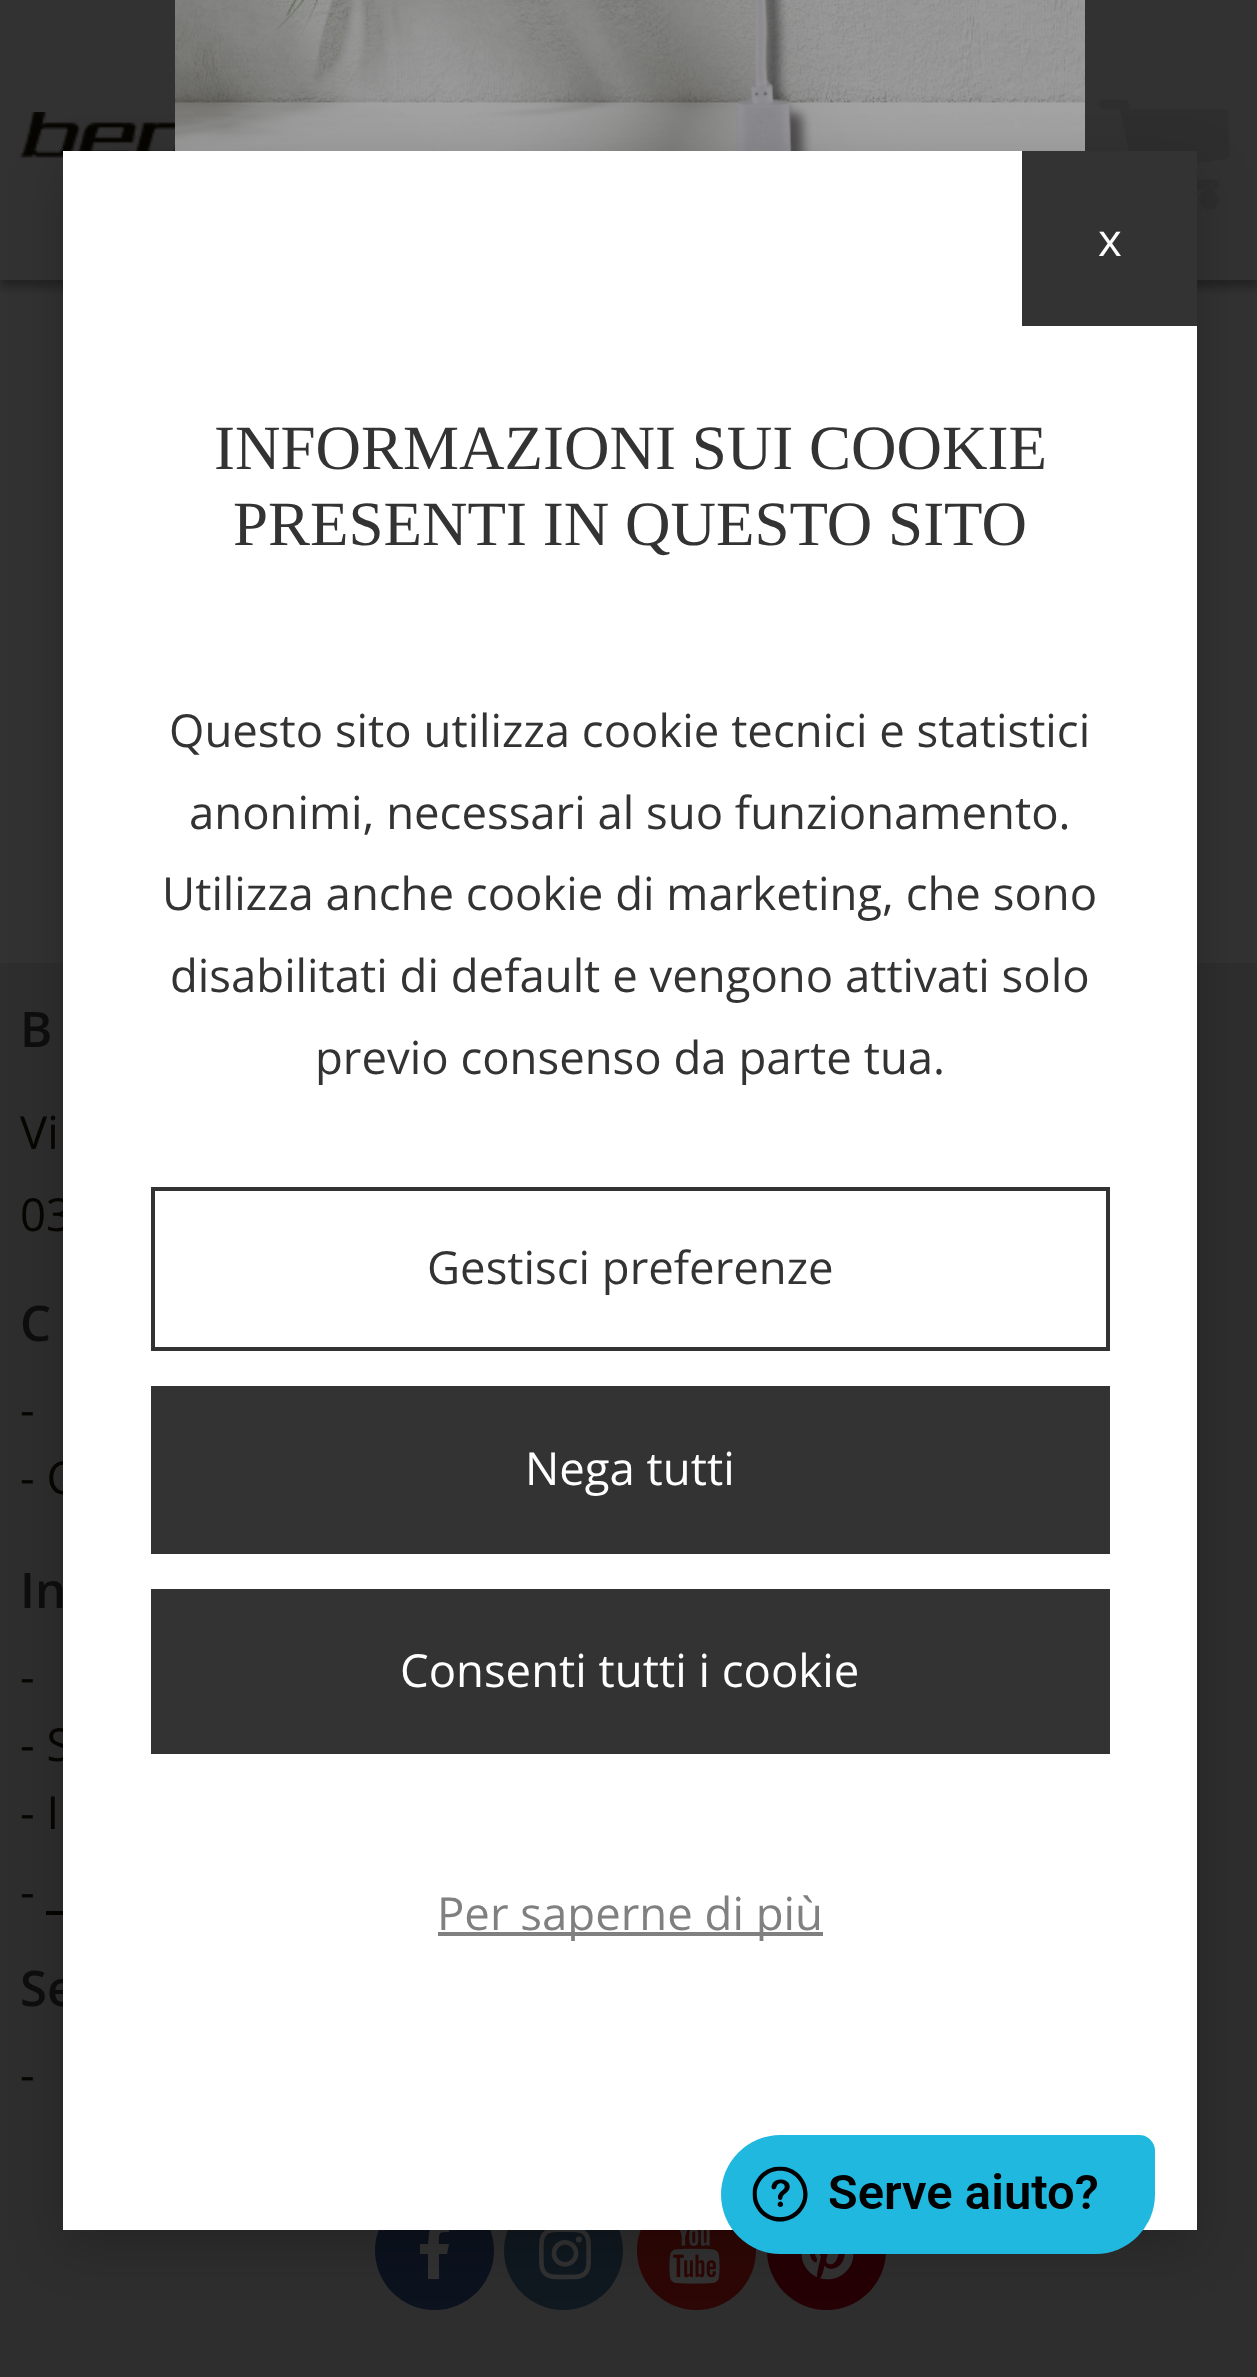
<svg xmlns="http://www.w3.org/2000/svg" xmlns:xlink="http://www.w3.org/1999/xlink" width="1257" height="2377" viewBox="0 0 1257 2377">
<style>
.cls-1{font:600 49px Open Sans;fill:#0d0d0d}
.cls-2{font:45.5px Open Sans;fill:#070501}
.cls-3{font:45.5px Open Sans;fill:#ffffff}
.cls-4{font:63px Liberation Serif;fill:#333333}
.cls-5{font:45.5px Open Sans;fill:#333333}
.cls-6{font:45.5px Open Sans;fill:#808080}
</style>
<defs>
<clipPath id="clip1"><rect x="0" y="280" width="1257" height="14"/></clipPath>
</defs>
<rect width="100%" height="100%" fill="#323232"/>
<g clip-path="url(#clip1)">
<rect fill="#000000" fill-opacity="0.3" filter="blur(5px)" x="0" y="7" width="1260" height="280"/>
</g>
<image xlink:href="image0.png" x="20" y="112" width="155" height="46"/>
<image xlink:href="image1.png" x="1099" y="99" width="130" height="111"/>
<image xlink:href="image2.png" x="175" y="0" width="910" height="151"/>
<rect fill="#2e2e2e" x="0" y="963" width="1257" height="1414"/>
<rect fill="#070501" x="46" y="1911" width="17" height="4"/>
<circle fill="#0c121e" cx="434.5" cy="2250.5" r="59.5"/>
<path fill="#323232" d="M449 2223V2232C438 2232 439 2233 439 2244H449L447 2254H439V2279H428V2254H420V2244H428L429 2233C430 2223 440 2222 449 2223Z"/>
<circle fill="#101920" cx="563.5" cy="2250.5" r="59.5"/>
<image xlink:href="image3.png" x="539" y="2230" width="52" height="50"/>
<circle fill="#2d0705" cx="696.5" cy="2250.5" r="59.5"/>
<image xlink:href="image4.png" x="669" y="2230" width="51" height="54"/>
<circle fill="#250105" cx="826.5" cy="2250.5" r="59.5"/>
<image xlink:href="image5.png" x="801" y="2254" width="53" height="26"/>
<rect fill="#000000" fill-opacity="0.2" filter="blur(26px)" x="63" y="168" width="1134" height="2079"/>
<text class="cls-1" x="20" y="1047">B</text>
<text class="cls-2"><tspan x="20" y="1149">Vi</tspan><tspan x="20" y="1231">03</tspan></text>
<text class="cls-1" x="20" y="1341">C</text>
<text class="cls-2"><tspan x="20" y="1426">-</tspan><tspan x="20" y="1494">- C</tspan></text>
<text class="cls-1" x="20" y="1608">In</text>
<text class="cls-2"><tspan x="20" y="1693">-</tspan><tspan x="20" y="1761">- S</tspan><tspan x="20" y="1829">- I</tspan><tspan x="20" y="1908">-</tspan></text>
<text class="cls-1" x="20" y="2006">Se</text>
<text class="cls-2" x="20" y="2091">-</text>
<rect fill="#ffffff" x="63" y="151" width="1134" height="2079"/>
<rect fill="#333333" x="1022" y="151" width="175" height="175"/>
<text class="cls-3" x="1098" y="256">x</text>
<text class="cls-4" x="214" y="469">INFORMAZIONI SUI COOKIE</text>
<text class="cls-4" x="233" y="545">PRESENTI IN QUESTO SITO</text>
<text class="cls-5" x="169" y="747">Questo sito utilizza cookie tecnici e statistici</text>
<text class="cls-5" x="189" y="829">anonimi, necessari al suo funzionamento.</text>
<text class="cls-5" x="162" y="910">Utilizza anche cookie di marketing, che sono</text>
<text class="cls-5" x="170" y="992">disabilitati di default e vengono attivati solo</text>
<text class="cls-5" x="315" y="1074">previo consenso da parte tua.</text>
<rect fill="none" stroke="#333333" stroke-width="4" x="153" y="1189" width="955" height="160"/>
<text class="cls-5" x="427" y="1284">Gestisci preferenze</text>
<rect fill="#333333" x="151" y="1386" width="959" height="168"/>
<text class="cls-3" x="525" y="1485">Nega tutti</text>
<rect fill="#333333" x="151" y="1589" width="959" height="165"/>
<text class="cls-3" x="400" y="1687">Consenti tutti i cookie</text>
<rect fill="#808080" x="438" y="1932" width="385" height="4"/>
<text class="cls-6" x="437" y="1930">Per saperne di più</text>
<image xlink:href="image6.png" x="721" y="2135" width="434" height="119"/>
</svg>
